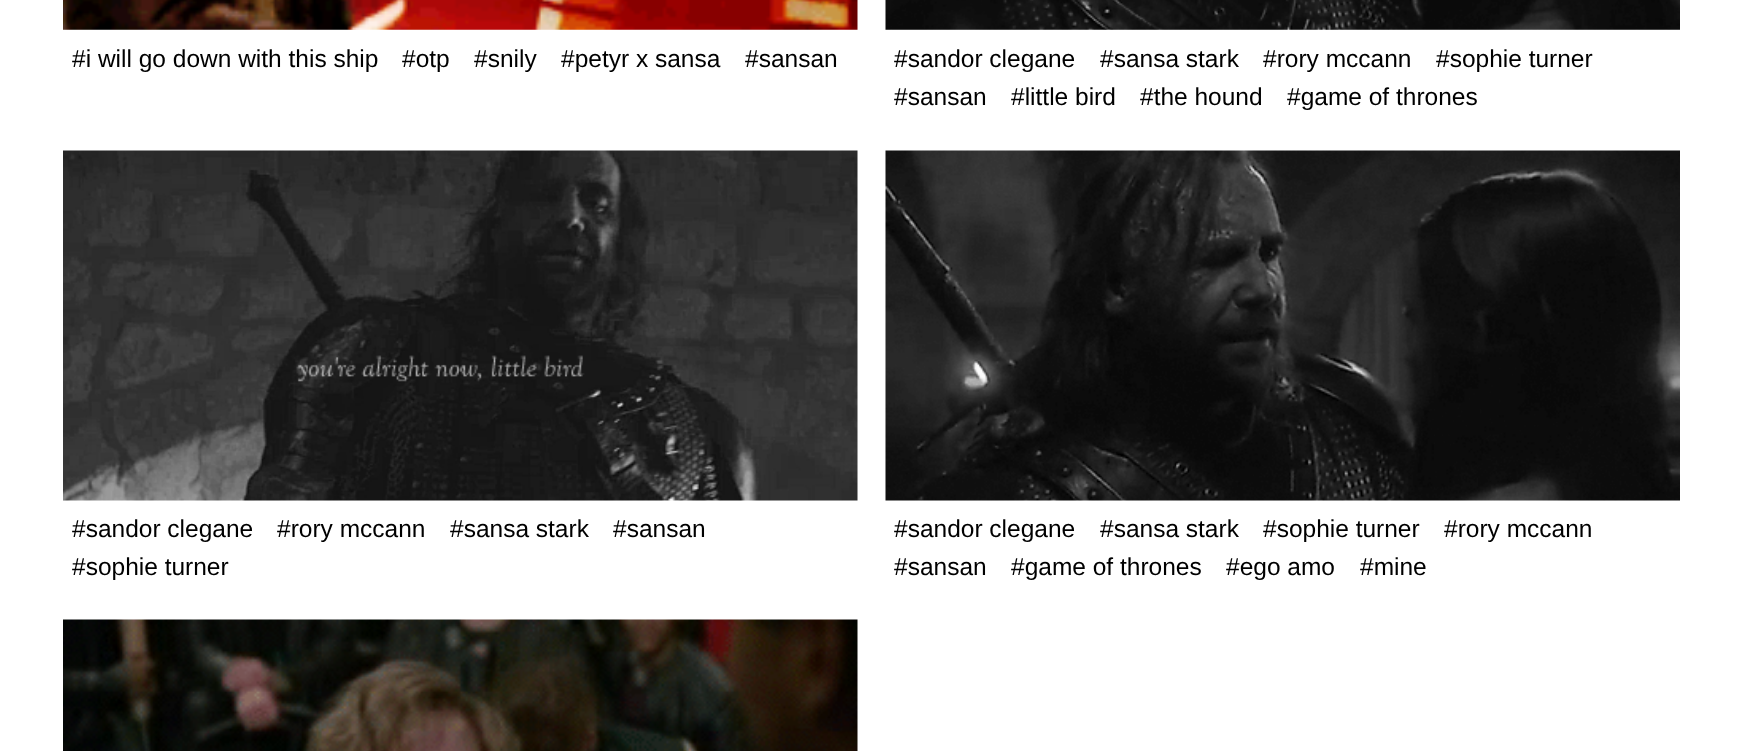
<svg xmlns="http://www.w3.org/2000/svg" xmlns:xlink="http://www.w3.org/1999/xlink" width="1743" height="751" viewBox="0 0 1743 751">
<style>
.cls-1{font:24.5px Liberation Sans;fill:#000000}
</style>
<rect width="100%" height="100%" fill="#ffffff"/>
<image xlink:href="image0.png" x="63" y="0" width="795" height="30"/>
<image xlink:href="image1.png" x="885" y="0" width="795" height="30"/>
<image xlink:href="image2.png" x="63" y="150" width="795" height="351"/>
<image xlink:href="image3.png" x="885" y="150" width="795" height="351"/>
<image xlink:href="image4.png" x="63" y="619" width="795" height="132"/>
<text class="cls-1" x="72" y="67">#i will go down with this ship</text>
<text class="cls-1" x="402" y="67">#otp</text>
<text class="cls-1" x="474" y="67">#snily</text>
<text class="cls-1" x="561" y="67">#petyr x sansa</text>
<text class="cls-1" x="745" y="67">#sansan</text>
<text class="cls-1" x="894" y="67">#sandor clegane</text>
<text class="cls-1" x="1100" y="67">#sansa stark</text>
<text class="cls-1" x="1263" y="67">#rory mccann</text>
<text class="cls-1" x="1436" y="67">#sophie turner</text>
<text class="cls-1" x="894" y="105">#sansan</text>
<text class="cls-1" x="1011" y="105">#little bird</text>
<text class="cls-1" x="1140" y="105">#the hound</text>
<text class="cls-1" x="1287" y="105">#game of thrones</text>
<text class="cls-1" x="72" y="537">#sandor clegane</text>
<text class="cls-1" x="277" y="537">#rory mccann</text>
<text class="cls-1" x="450" y="537">#sansa stark</text>
<text class="cls-1" x="613" y="537">#sansan</text>
<text class="cls-1" x="72" y="575">#sophie turner</text>
<text class="cls-1" x="894" y="537">#sandor clegane</text>
<text class="cls-1" x="1100" y="537">#sansa stark</text>
<text class="cls-1" x="1263" y="537">#sophie turner</text>
<text class="cls-1" x="1444" y="537">#rory mccann</text>
<text class="cls-1" x="894" y="575">#sansan</text>
<text class="cls-1" x="1011" y="575">#game of thrones</text>
<text class="cls-1" x="1226" y="575">#ego amo</text>
<text class="cls-1" x="1360" y="575">#mine</text>
</svg>
